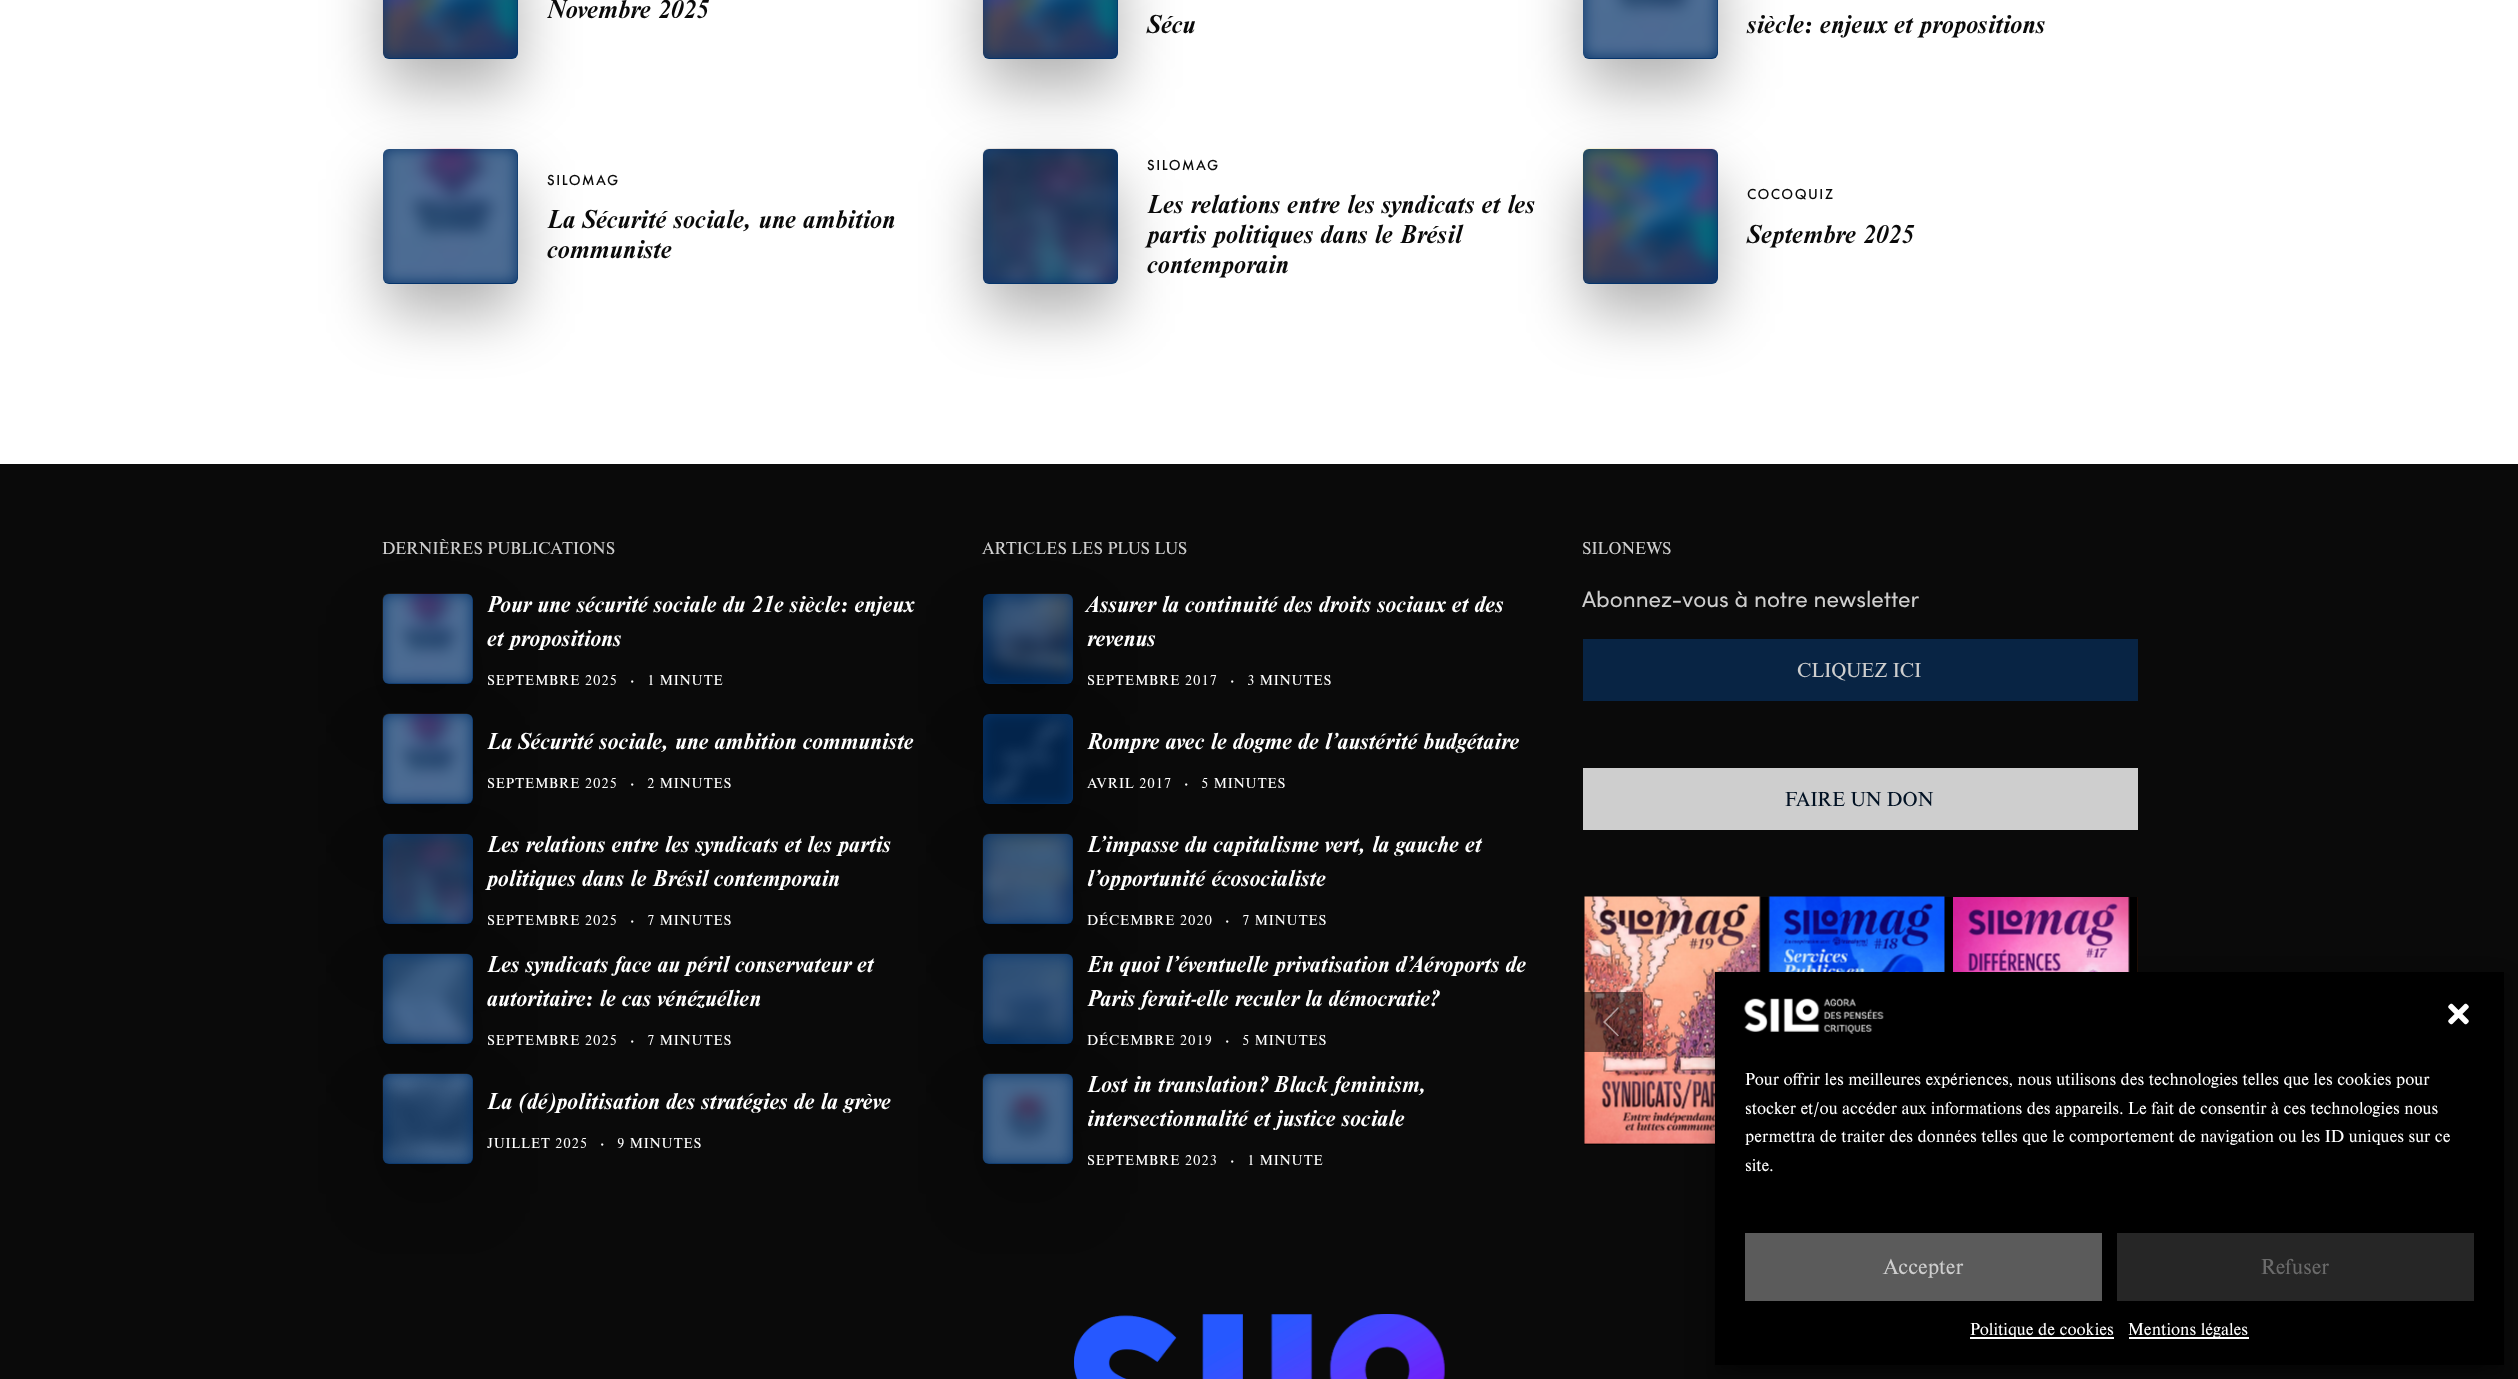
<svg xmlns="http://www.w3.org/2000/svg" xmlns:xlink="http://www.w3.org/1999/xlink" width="2518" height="1379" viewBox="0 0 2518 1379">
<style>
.cls-1{font:italic bold 27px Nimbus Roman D;fill:#0a0a0a}
.cls-2{font:500 15px Futura PT;letter-spacing:1.5px;fill:#0a0a0a}
.cls-3{font:18px Nimbus Roman D;fill:#cecece}
.cls-4{font:italic bold 24px Nimbus Roman D;fill:#ffffff}
.cls-5{font:15px Nimbus Roman D;letter-spacing:0.75px;fill:#ffffff}
.cls-6{font:bold 15px Nimbus Roman D;letter-spacing:0.75px;fill:#ffffff}
.cls-7{font:22.5px Sofia;fill:#cecece}
.cls-8{font:21px Nimbus Roman D;fill:#cecece}
.cls-9{font:21px Nimbus Roman D;fill:#021224}
.cls-10{font:18px Nimbus Roman D;fill:#ffffff}
.cls-11{font:22.5px Nimbus Roman D;fill:#cecece}
.cls-12{font:22.5px Nimbus Roman D;fill:#6b6b6b}
</style>
<rect width="100%" height="100%" fill="#ffffff"/>
<rect fill="#000000" fill-opacity="0.3" filter="blur(30px)" x="383" y="-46" width="135" height="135" rx="6"/>
<rect fill="#05346b" x="383" y="-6" width="135" height="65" rx="6"/>
<image xlink:href="image0.png" x="382" y="0" width="136" height="58"/>
<rect fill="#000000" fill-opacity="0.3" filter="blur(30px)" x="983" y="-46" width="135" height="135" rx="6"/>
<rect fill="#05346b" x="983" y="-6" width="135" height="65" rx="6"/>
<image xlink:href="image0.png" x="982" y="0" width="136" height="58"/>
<rect fill="#000000" fill-opacity="0.3" filter="blur(30px)" x="1583" y="-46" width="135" height="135" rx="6"/>
<rect fill="#05346b" x="1583" y="-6" width="135" height="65" rx="6"/>
<image xlink:href="image1.png" x="1583" y="0" width="135" height="58"/>
<rect fill="#000000" fill-opacity="0.3" filter="blur(30px)" x="383" y="179" width="135" height="135" rx="6"/>
<rect fill="#05346b" x="383" y="149" width="135" height="135" rx="6"/>
<image xlink:href="image2.png" x="383" y="148" width="135" height="135"/>
<rect fill="#000000" fill-opacity="0.3" filter="blur(30px)" x="983" y="179" width="135" height="135" rx="6"/>
<rect fill="#05346b" x="983" y="149" width="135" height="135" rx="6"/>
<image xlink:href="image3.png" x="982" y="148" width="136" height="135"/>
<rect fill="#000000" fill-opacity="0.3" filter="blur(30px)" x="1583" y="179" width="135" height="135" rx="6"/>
<rect fill="#05346b" x="1583" y="149" width="135" height="135" rx="6"/>
<image xlink:href="image4.png" x="1582" y="148" width="136" height="135"/>
<rect fill="#0a0a0a" x="0" y="464" width="2518" height="790"/>
<rect fill="#000000" fill-opacity="0.3" filter="blur(30px)" x="383" y="624" width="90" height="90" rx="6"/>
<rect fill="#05346b" x="383" y="594" width="90" height="90" rx="6"/>
<image xlink:href="image5.png" x="382" y="593" width="91" height="91"/>
<rect fill="#000000" fill-opacity="0.3" filter="blur(30px)" x="383" y="744" width="90" height="90" rx="6"/>
<rect fill="#05346b" x="383" y="714" width="90" height="90" rx="6"/>
<image xlink:href="image6.png" x="382" y="713" width="91" height="91"/>
<rect fill="#000000" fill-opacity="0.3" filter="blur(30px)" x="383" y="864" width="90" height="90" rx="6"/>
<rect fill="#05346b" x="383" y="834" width="90" height="90" rx="6"/>
<image xlink:href="image7.png" x="382" y="833" width="91" height="91"/>
<rect fill="#000000" fill-opacity="0.3" filter="blur(30px)" x="383" y="984" width="90" height="90" rx="6"/>
<rect fill="#05346b" x="383" y="954" width="90" height="90" rx="6"/>
<image xlink:href="image8.png" x="382" y="953" width="91" height="91"/>
<rect fill="#000000" fill-opacity="0.3" filter="blur(30px)" x="383" y="1104" width="90" height="90" rx="6"/>
<rect fill="#05346b" x="383" y="1074" width="90" height="90" rx="6"/>
<image xlink:href="image9.png" x="382" y="1073" width="91" height="91"/>
<rect fill="#000000" fill-opacity="0.3" filter="blur(30px)" x="983" y="624" width="90" height="90" rx="6"/>
<rect fill="#05346b" x="983" y="594" width="90" height="90" rx="6"/>
<image xlink:href="image10.png" x="982" y="593" width="91" height="91"/>
<rect fill="#000000" fill-opacity="0.3" filter="blur(30px)" x="983" y="744" width="90" height="90" rx="6"/>
<rect fill="#05346b" x="983" y="714" width="90" height="90" rx="6"/>
<image xlink:href="image11.png" x="983" y="714" width="90" height="90"/>
<rect fill="#000000" fill-opacity="0.3" filter="blur(30px)" x="983" y="864" width="90" height="90" rx="6"/>
<rect fill="#05346b" x="983" y="834" width="90" height="90" rx="6"/>
<image xlink:href="image12.png" x="982" y="833" width="91" height="91"/>
<rect fill="#000000" fill-opacity="0.3" filter="blur(30px)" x="983" y="984" width="90" height="90" rx="6"/>
<rect fill="#05346b" x="983" y="954" width="90" height="90" rx="6"/>
<image xlink:href="image13.png" x="982" y="953" width="91" height="91"/>
<rect fill="#000000" fill-opacity="0.3" filter="blur(30px)" x="983" y="1104" width="90" height="90" rx="6"/>
<rect fill="#05346b" x="983" y="1074" width="90" height="90" rx="6"/>
<image xlink:href="image14.png" x="982" y="1073" width="91" height="91"/>
<rect fill="#082444" x="1583" y="639" width="555" height="62"/>
<rect fill="#cecece" x="1583" y="768" width="555" height="62"/>
<rect fill="#000000" x="1584" y="897" width="554" height="248"/>
<image xlink:href="image15.png" x="1584" y="896" width="177" height="248"/>
<image xlink:href="image16.png" x="1768" y="896" width="177" height="76"/>
<image xlink:href="image17.png" x="1953" y="897" width="177" height="75"/>
<image xlink:href="image18.png" x="2137" y="897" width="1" height="75"/>
<rect fill="#000000" fill-opacity="0.5" x="1583" y="992" width="60" height="60"/>
<path fill="#ffffff" fill-opacity="0.5" d="M1618 1036.5L1603 1022L1618 1007L1619 1008L1605.5 1022L1619 1035.5Z"/>
<rect fill="#0a0a0a" x="0" y="1254" width="2518" height="125"/>
<image xlink:href="image19.png" x="1074" y="1314" width="371" height="65"/>
<rect fill="#000000" fill-opacity="0.23" filter="blur(4.5px)" x="1715" y="981" width="789" height="393"/>
<rect fill="#000000" fill-opacity="0.19" filter="blur(15px)" x="1715" y="987" width="789" height="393"/>
<rect fill="#000000" x="1715" y="972" width="789" height="393"/>
<image xlink:href="image20.png" x="1744" y="998" width="140" height="36"/>
<image xlink:href="image21.png" x="2448" y="1003" width="21" height="22"/>
<rect fill="#5b5b5b" x="1745" y="1233" width="357" height="68"/>
<rect fill="#262626" x="2117" y="1233" width="357" height="68"/>
<rect fill="#ffffff" x="1970" y="1337" width="144" height="2"/>
<rect fill="#ffffff" x="2129" y="1337" width="120" height="2"/>
<text class="cls-1" x="547" y="18">Novembre 2025</text>
<text class="cls-1" x="1147" y="33">Sécu</text>
<text class="cls-1" x="1747" y="33">siècle: enjeux et propositions</text>
<text class="cls-2" x="547" y="185">SILOMAG</text>
<text class="cls-1"><tspan x="547" y="228">La Sécurité sociale, une ambition</tspan><tspan x="547" y="258">communiste</tspan></text>
<text class="cls-2" x="1147" y="170">SILOMAG</text>
<text class="cls-1"><tspan x="1147" y="213">Les relations entre les syndicats et les</tspan><tspan x="1147" y="243">partis politiques dans le Brésil</tspan><tspan x="1147" y="273">contemporain</tspan></text>
<text class="cls-2" x="1747" y="199">COCOQUIZ</text>
<text class="cls-1" x="1747" y="243">Septembre 2025</text>
<text class="cls-3" x="382" y="554">DERNIÈRES PUBLICATIONS</text>
<text class="cls-4"><tspan x="487" y="612">Pour une sécurité sociale du 21e siècle: enjeux</tspan><tspan x="487" y="646">et propositions</tspan></text>
<text class="cls-5" x="487" y="685">SEPTEMBRE 2025</text>
<text class="cls-6" x="630" y="685">·</text>
<text class="cls-5" x="647" y="685">1 MINUTE</text>
<text class="cls-4" x="487" y="749">La Sécurité sociale, une ambition communiste</text>
<text class="cls-5" x="487" y="788">SEPTEMBRE 2025</text>
<text class="cls-6" x="630" y="788">·</text>
<text class="cls-5" x="647" y="788">2 MINUTES</text>
<text class="cls-4"><tspan x="487" y="852">Les relations entre les syndicats et les partis</tspan><tspan x="487" y="886">politiques dans le Brésil contemporain</tspan></text>
<text class="cls-5" x="487" y="925">SEPTEMBRE 2025</text>
<text class="cls-6" x="630" y="925">·</text>
<text class="cls-5" x="647" y="925">7 MINUTES</text>
<text class="cls-4"><tspan x="487" y="972">Les syndicats face au péril conservateur et</tspan><tspan x="487" y="1006">autoritaire: le cas vénézuélien</tspan></text>
<text class="cls-5" x="487" y="1045">SEPTEMBRE 2025</text>
<text class="cls-6" x="630" y="1045">·</text>
<text class="cls-5" x="647" y="1045">7 MINUTES</text>
<text class="cls-4" x="487" y="1109">La (dé)politisation des stratégies de la grève</text>
<text class="cls-5" x="487" y="1148">JUILLET 2025</text>
<text class="cls-6" x="600" y="1148">·</text>
<text class="cls-5" x="617" y="1148">9 MINUTES</text>
<text class="cls-3" x="982" y="554">ARTICLES LES PLUS LUS</text>
<text class="cls-4"><tspan x="1087" y="612">Assurer la continuité des droits sociaux et des</tspan><tspan x="1087" y="646">revenus</tspan></text>
<text class="cls-5" x="1087" y="685">SEPTEMBRE 2017</text>
<text class="cls-6" x="1230" y="685">·</text>
<text class="cls-5" x="1247" y="685">3 MINUTES</text>
<text class="cls-4" x="1087" y="749">Rompre avec le dogme de l’austérité budgétaire</text>
<text class="cls-5" x="1087" y="788">AVRIL 2017</text>
<text class="cls-6" x="1184" y="788">·</text>
<text class="cls-5" x="1201" y="788">5 MINUTES</text>
<text class="cls-4"><tspan x="1087" y="852">L’impasse du capitalisme vert, la gauche et</tspan><tspan x="1087" y="886">l’opportunité écosocialiste</tspan></text>
<text class="cls-5" x="1087" y="925">DÉCEMBRE 2020</text>
<text class="cls-6" x="1225" y="925">·</text>
<text class="cls-5" x="1242" y="925">7 MINUTES</text>
<text class="cls-4"><tspan x="1087" y="972">En quoi l’éventuelle privatisation d’Aéroports de</tspan><tspan x="1087" y="1006">Paris ferait-elle reculer la démocratie?</tspan></text>
<text class="cls-5" x="1087" y="1045">DÉCEMBRE 2019</text>
<text class="cls-6" x="1225" y="1045">·</text>
<text class="cls-5" x="1242" y="1045">5 MINUTES</text>
<text class="cls-4"><tspan x="1087" y="1092">Lost in translation? Black feminism,</tspan><tspan x="1087" y="1126">intersectionnalité et justice sociale</tspan></text>
<text class="cls-5" x="1087" y="1165">SEPTEMBRE 2023</text>
<text class="cls-6" x="1230" y="1165">·</text>
<text class="cls-5" x="1247" y="1165">1 MINUTE</text>
<text class="cls-3" x="1582" y="554">SILONEWS</text>
<text class="cls-7" x="1582" y="607">Abonnez-vous à notre newsletter</text>
<text class="cls-8" x="1797" y="677">CLIQUEZ ICI</text>
<text class="cls-9" x="1785" y="806">FAIRE UN DON</text>
<text class="cls-10"><tspan x="1745" y="1085">Pour offrir les meilleures expériences, nous utilisons des technologies telles que les cookies pour</tspan><tspan x="1745" y="1114">stocker et/ou accéder aux informations des appareils. Le fait de consentir à ces technologies nous</tspan><tspan x="1745" y="1142">permettra de traiter des données telles que le comportement de navigation ou les ID uniques sur ce</tspan><tspan x="1745" y="1171">site.</tspan></text>
<text class="cls-11" x="1883" y="1274">Accepter</text>
<text class="cls-12" x="2261" y="1274">Refuser</text>
<text class="cls-10" x="1970" y="1335">Politique de cookies</text>
<text class="cls-10" x="2128" y="1335">Mentions légales</text>
</svg>
